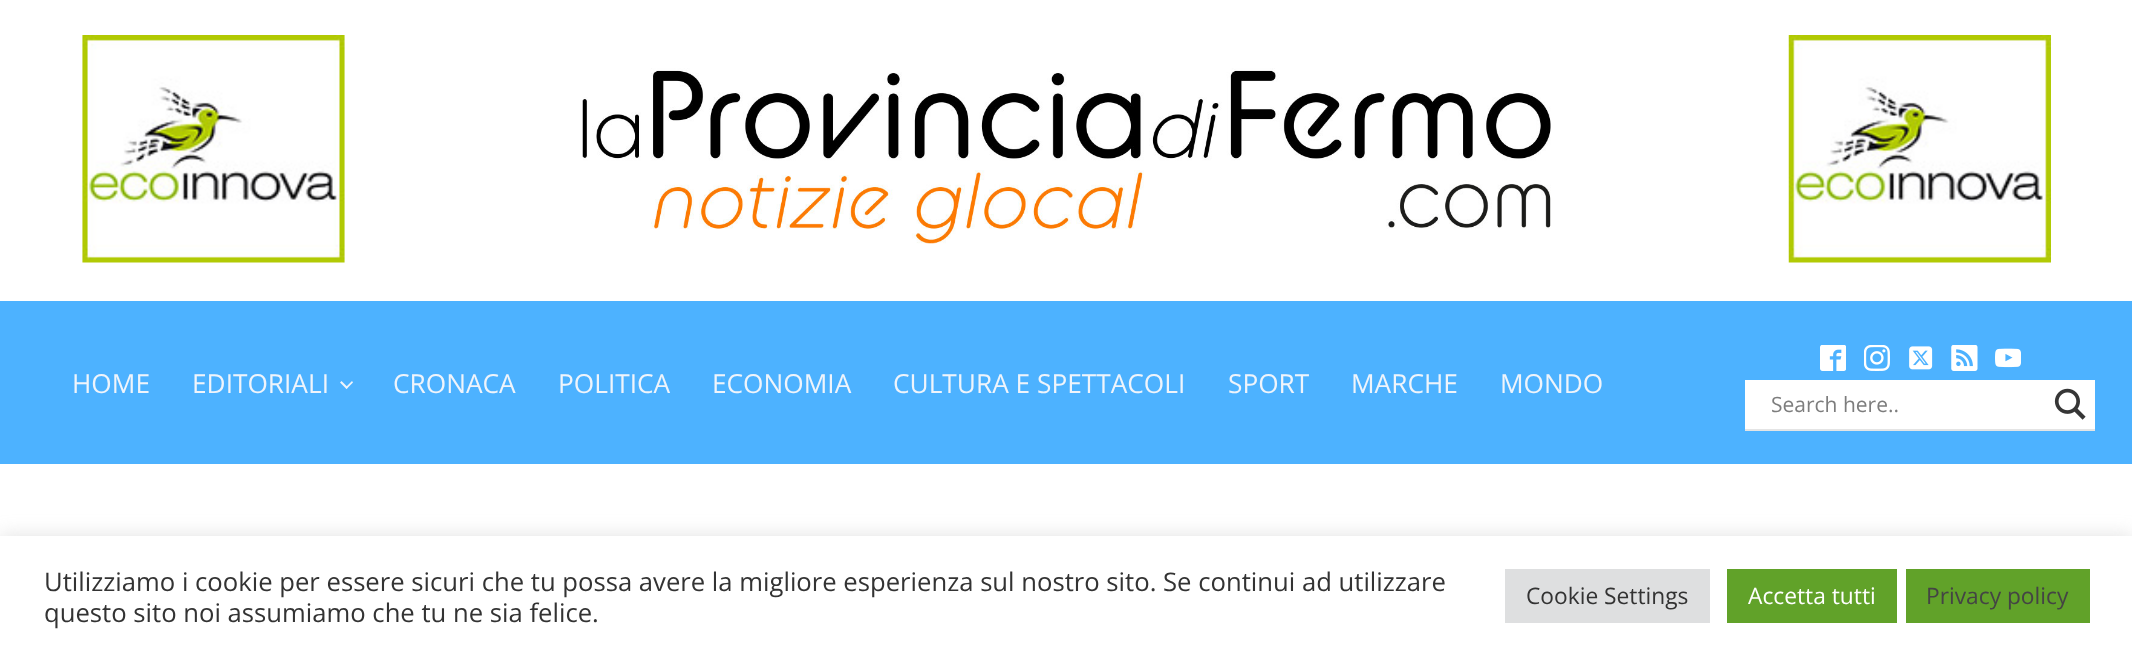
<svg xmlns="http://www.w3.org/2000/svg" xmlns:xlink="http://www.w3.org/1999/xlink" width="2132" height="656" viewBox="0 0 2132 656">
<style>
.cls-1{font:26.25px Open Sans;fill:#eff4fb}
.cls-2{font:21px Open Sans;fill:#7d7d7d}
.cls-3{font:25.67px Open Sans;fill:#333333}
.cls-4{font:22.75px Open Sans;fill:#333333}
.cls-5{font:22.75px Open Sans;fill:#ffffff}
.cls-6{font:22.75px Open Sans;fill:#444444}
</style>
<rect width="100%" height="100%" fill="#ffffff"/>
<image xlink:href="image0.png" x="82" y="35" width="263" height="228"/>
<image xlink:href="image1.png" x="582" y="68" width="969" height="176"/>
<image xlink:href="image2.png" x="1788" y="35" width="263" height="228"/>
<rect fill="#4db2ff" x="0" y="301" width="2132" height="163"/>
<path fill="#eff4fb" d="M353 382.5L346.5 389L345.5 387.5L352 381Z"/>
<path fill="#eff4fb" d="M348 387.5L346.5 389L340 382.5L341.5 381Z"/>
<image xlink:href="image3.png" x="1820" y="345" width="26" height="26"/>
<image xlink:href="image4.png" x="1864" y="345" width="26" height="26"/>
<image xlink:href="image5.png" x="1909" y="346" width="24" height="24"/>
<image xlink:href="image6.png" x="1951" y="345" width="27" height="26"/>
<image xlink:href="image7.png" x="1995" y="348" width="26" height="20"/>
<path fill="#e4e4e4" d="M1745 429V431H2095V382V429Z"/>
<rect fill="#ffffff" x="1745" y="380" width="350" height="49"/>
<image xlink:href="image8.png" x="2054" y="388" width="32" height="32"/>
<rect fill="#acabab" fill-opacity="0.3" filter="blur(9px)" x="0" y="534" width="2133" height="121"/>
<rect fill="#ffffff" x="0" y="536" width="2132" height="120"/>
<rect fill="#dedfe0" x="1505" y="569" width="205" height="54"/>
<rect fill="#61a229" x="1727" y="569" width="170" height="54"/>
<rect fill="#61a229" x="1906" y="569" width="184" height="54"/>
<text class="cls-1" x="72" y="393">HOME</text>
<text class="cls-1" x="192" y="393">EDITORIALI</text>
<text class="cls-1" x="393" y="393">CRONACA</text>
<text class="cls-1" x="558" y="393">POLITICA</text>
<text class="cls-1" x="712" y="393">ECONOMIA</text>
<text class="cls-1" x="893" y="393">CULTURA E SPETTACOLI</text>
<text class="cls-1" x="1228" y="393">SPORT</text>
<text class="cls-1" x="1351" y="393">MARCHE</text>
<text class="cls-1" x="1500" y="393">MONDO</text>
<text class="cls-2" x="1771" y="412">Search here..</text>
<text class="cls-3"><tspan x="44" y="591">Utilizziamo i cookie per essere sicuri che tu possa avere la migliore esperienza sul nostro sito. Se continui ad utilizzare</tspan><tspan x="44" y="622">questo sito noi assumiamo che tu ne sia felice.</tspan></text>
<text class="cls-4" x="1526" y="604">Cookie Settings</text>
<text class="cls-5" x="1748" y="604">Accetta tutti</text>
<text class="cls-6" x="1926" y="604">Privacy policy</text>
</svg>
